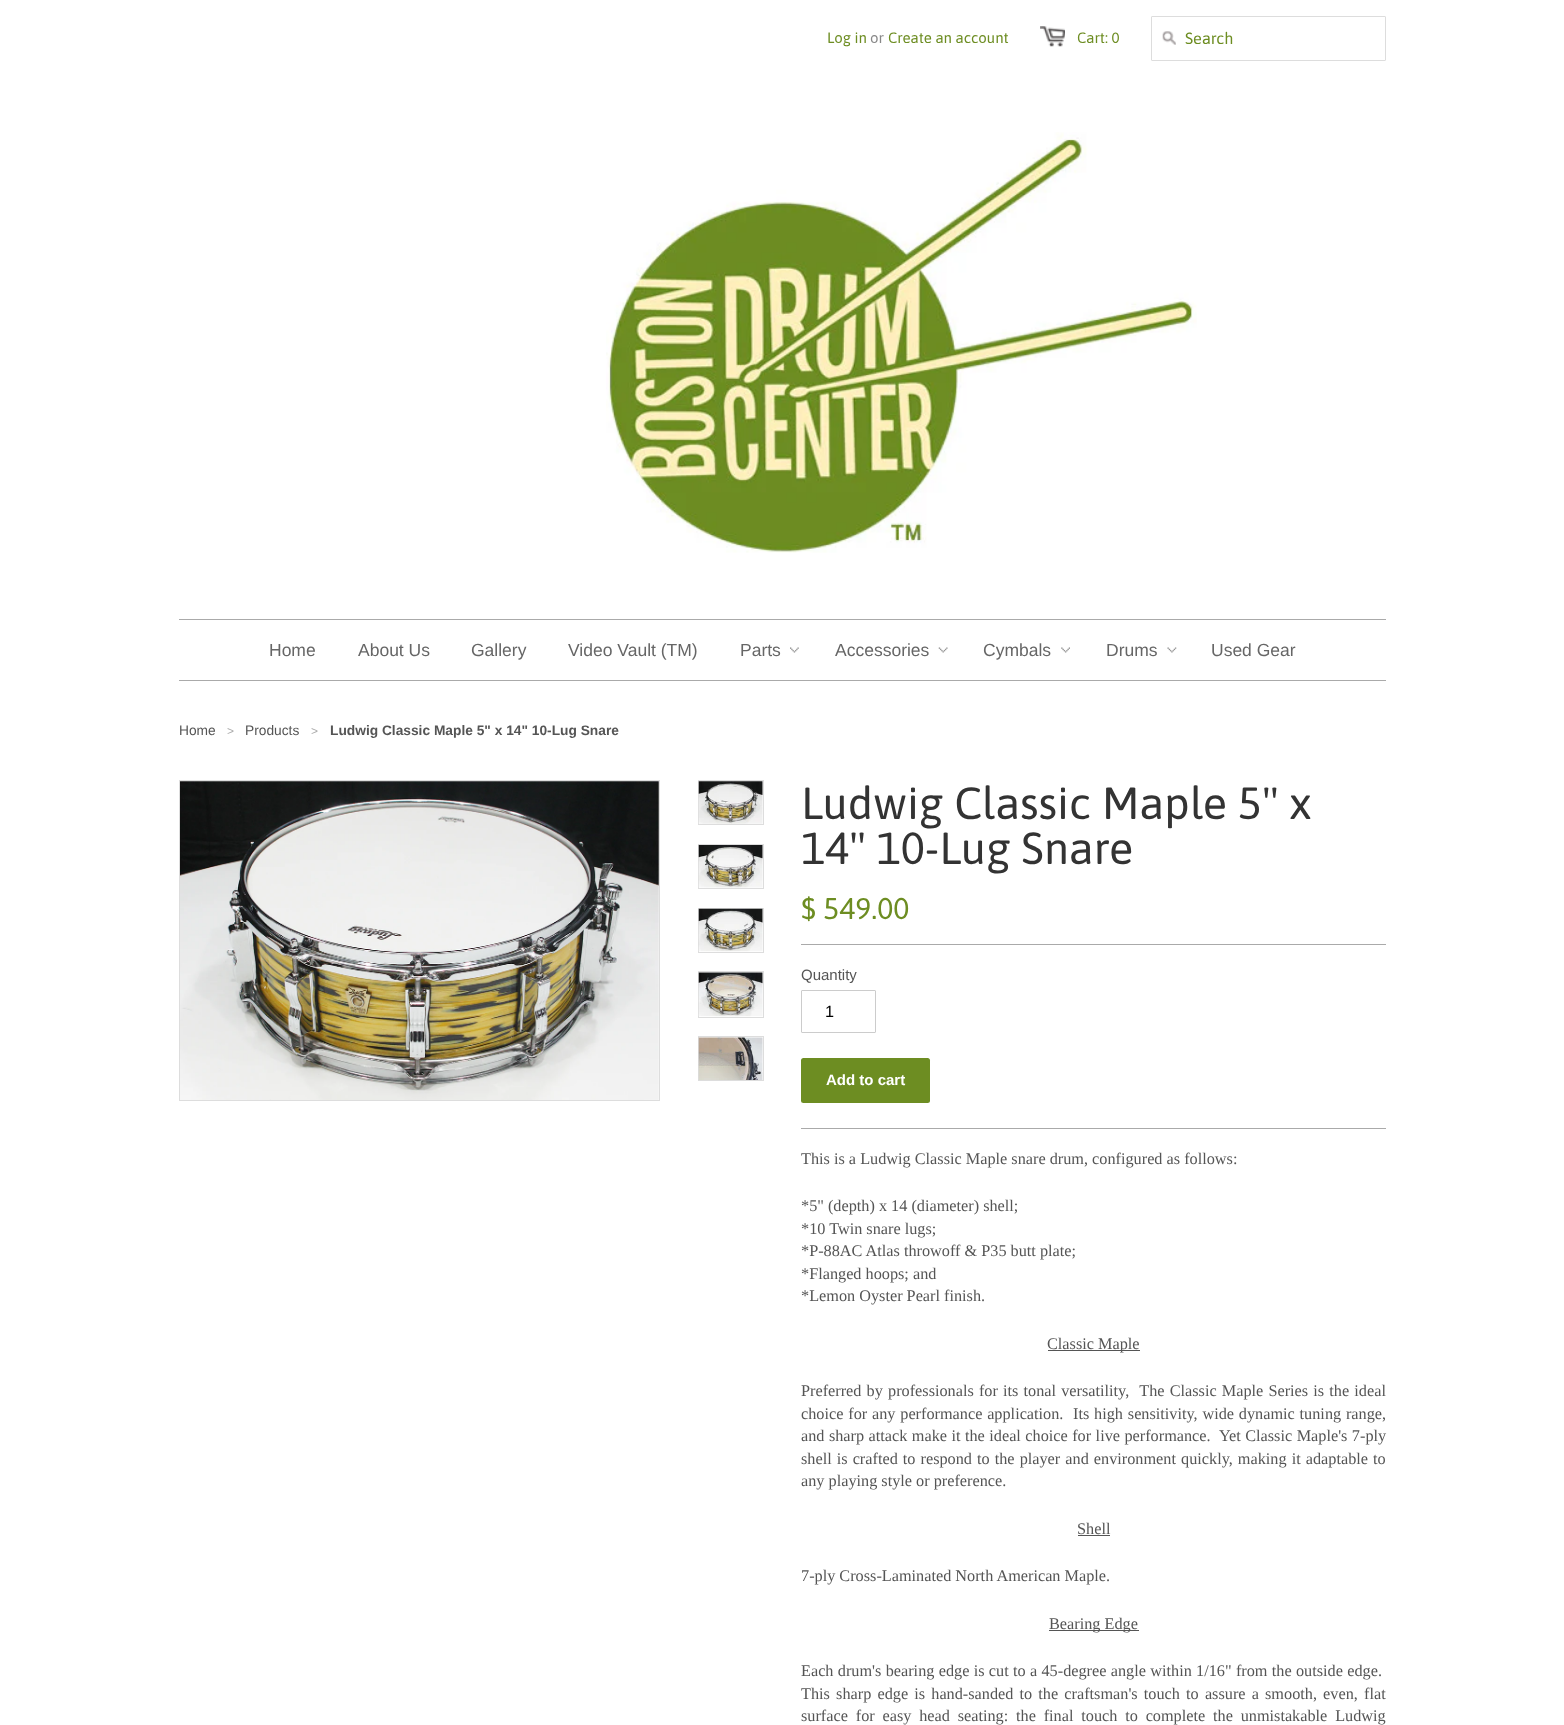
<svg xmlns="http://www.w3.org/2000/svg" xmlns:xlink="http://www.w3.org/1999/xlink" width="1564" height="1725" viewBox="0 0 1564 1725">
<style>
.cls-1{font:15px Asap;fill:#6d8d22}
.cls-2{font:15px Asap;fill:#888888}
.cls-3{font:16.25px Asap;fill:#6d8d22}
.cls-4{font:17.5px Liberation Sans;fill:#666666}
.cls-5{font:13.75px Liberation Sans;fill:#555555}
.cls-6{font:12px Liberation Sans;fill:#aaaaaa}
.cls-7{font:bold 13.75px Liberation Sans;fill:#555555}
.cls-8{font:45px Asap;fill:#333333}
.cls-9{font:30px Asap;fill:#6d8d22}
.cls-10{font:15px Liberation Sans;fill:#555555}
.cls-11{font:16.25px Liberation Sans;fill:#000000}
.cls-12{font:bold 15px Liberation Sans;fill:#ffffff}
.cls-13{font:16.25px Liberation Serif;fill:#555555}
</style>
<rect width="100%" height="100%" fill="#ffffff"/>
<image xlink:href="image0.png" x="1040" y="26" width="25" height="21"/>
<rect fill="none" stroke="#dddddd" x="1151.5" y="16.5" width="234" height="44" rx="0.5"/>
<image xlink:href="image1.png" x="1162" y="31" width="14" height="14"/>
<image xlink:href="image2.png" x="606" y="132" width="591" height="421"/>
<rect fill="#aaaaaa" x="179" y="619" width="1207" height="1"/>
<rect fill="#aaaaaa" x="179" y="680" width="1207" height="1"/>
<image xlink:href="image3.png" x="790" y="647" width="9" height="6"/>
<image xlink:href="image4.png" x="938" y="647" width="10" height="6"/>
<image xlink:href="image5.png" x="1061" y="647" width="9" height="6"/>
<image xlink:href="image6.png" x="1167" y="647" width="10" height="6"/>
<rect fill="none" stroke="#dddddd" x="179.5" y="780.5" width="480" height="320"/>
<image xlink:href="image7.png" x="180" y="781" width="479" height="319"/>
<rect fill="none" stroke="#dddddd" x="698.5" y="780.5" width="65" height="44"/>
<image xlink:href="image8.png" x="698" y="781" width="65" height="43"/>
<rect fill="none" stroke="#dddddd" x="698.5" y="844.5" width="65" height="44"/>
<image xlink:href="image9.png" x="698" y="845" width="65" height="43"/>
<rect fill="none" stroke="#dddddd" x="698.5" y="908.5" width="65" height="44"/>
<image xlink:href="image10.png" x="698" y="908" width="65" height="44"/>
<rect fill="none" stroke="#dddddd" x="698.5" y="971.5" width="65" height="46"/>
<image xlink:href="image11.png" x="698" y="972" width="65" height="45"/>
<rect fill="none" stroke="#dddddd" x="698.5" y="1036.5" width="65" height="44"/>
<image xlink:href="image12.png" x="698" y="1037" width="65" height="43"/>
<rect fill="#aaaaaa" x="801" y="944" width="585" height="1"/>
<rect fill="#aaaaaa" x="801" y="1128" width="585" height="1"/>
<rect fill="none" stroke="#cccccc" x="801.5" y="990.5" width="74" height="42" rx="0.5"/>
<rect fill="#6d8d22" x="801" y="1058" width="129" height="45" rx="2.5"/>
<rect fill="#555555" x="1048" y="1350" width="92" height="1"/>
<rect fill="#555555" x="1078" y="1535" width="32" height="1"/>
<rect fill="#555555" x="1049" y="1630" width="90" height="1"/>
<text class="cls-1" x="827" y="43">Log in</text>
<text class="cls-2" x="870" y="43">or</text>
<text class="cls-1" x="888" y="43">Create an account</text>
<text class="cls-1" x="1077" y="43">Cart: 0</text>
<text class="cls-3" x="1185" y="44">Search</text>
<text class="cls-4" x="269" y="656">Home</text>
<text class="cls-4" x="358" y="656">About Us</text>
<text class="cls-4" x="471" y="656">Gallery</text>
<text class="cls-4" x="568" y="656">Video Vault (TM)</text>
<text class="cls-4" x="740" y="656">Parts</text>
<text class="cls-4" x="835" y="656">Accessories</text>
<text class="cls-4" x="983" y="656">Cymbals</text>
<text class="cls-4" x="1106" y="656">Drums</text>
<text class="cls-4" x="1211" y="656">Used Gear</text>
<text class="cls-5" x="179" y="735">Home</text>
<text class="cls-6" x="227" y="735">&gt;</text>
<text class="cls-5" x="245" y="735">Products</text>
<text class="cls-6" x="311" y="735">&gt;</text>
<text class="cls-7" x="330" y="735">Ludwig Classic Maple 5" x 14" 10-Lug Snare</text>
<text class="cls-8"><tspan x="801" y="819">Ludwig Classic Maple 5" x</tspan><tspan x="801" y="864">14" 10-Lug Snare</tspan></text>
<text class="cls-9" x="801" y="919">$ 549.00</text>
<text class="cls-10" x="801" y="980">Quantity</text>
<text class="cls-11" x="825" y="1017">1</text>
<text class="cls-12" x="826" y="1085">Add to cart</text>
<text class="cls-13" x="801" y="1164">This is a Ludwig Classic Maple snare drum, configured as follows:</text>
<text class="cls-13"><tspan x="801" y="1211">*5" (depth) x 14 (diameter) shell;</tspan><tspan x="801" y="1234">*10 Twin snare lugs;</tspan><tspan x="801" y="1256">*P-88AC Atlas throwoff &amp; P35 butt plate;</tspan><tspan x="801" y="1279">*Flanged hoops; and</tspan><tspan x="801" y="1301">*Lemon Oyster Pearl finish.</tspan></text>
<text class="cls-13" x="1047" y="1349">Classic Maple</text>
<text class="cls-13" xml:space="preserve"><tspan x="801" y="1396" word-spacing="1.1">Preferred by professionals for its tonal versatility,  The Classic Maple Series is the ideal</tspan><tspan x="801" y="1419" word-spacing="0.75">choice for any performance application.  Its high sensitivity, wide dynamic tuning range,</tspan><tspan x="801" y="1441" word-spacing="0.4">and sharp attack make it the ideal choice for live performance.  Yet Classic Maple's 7-ply</tspan><tspan x="801" y="1464" word-spacing="1">shell is crafted to respond to the player and environment quickly, making it adaptable to</tspan><tspan x="801" y="1486">any playing style or preference.</tspan></text>
<text class="cls-13" x="1077" y="1534">Shell</text>
<text class="cls-13" x="801" y="1581">7-ply Cross-Laminated North American Maple.</text>
<text class="cls-13" x="1049" y="1629">Bearing Edge</text>
<text class="cls-13"><tspan x="801" y="1676" word-spacing="0.25">Each drum's bearing edge is cut to a 45-degree angle within 1/16" from the outside edge.</tspan><tspan x="801" y="1699" word-spacing="2.1">This sharp edge is hand-sanded to the craftsman's touch to assure a smooth, even, flat</tspan><tspan x="801" y="1721" word-spacing="3.75">surface for easy head seating: the final touch to complete the unmistakable Ludwig</tspan></text>
</svg>
